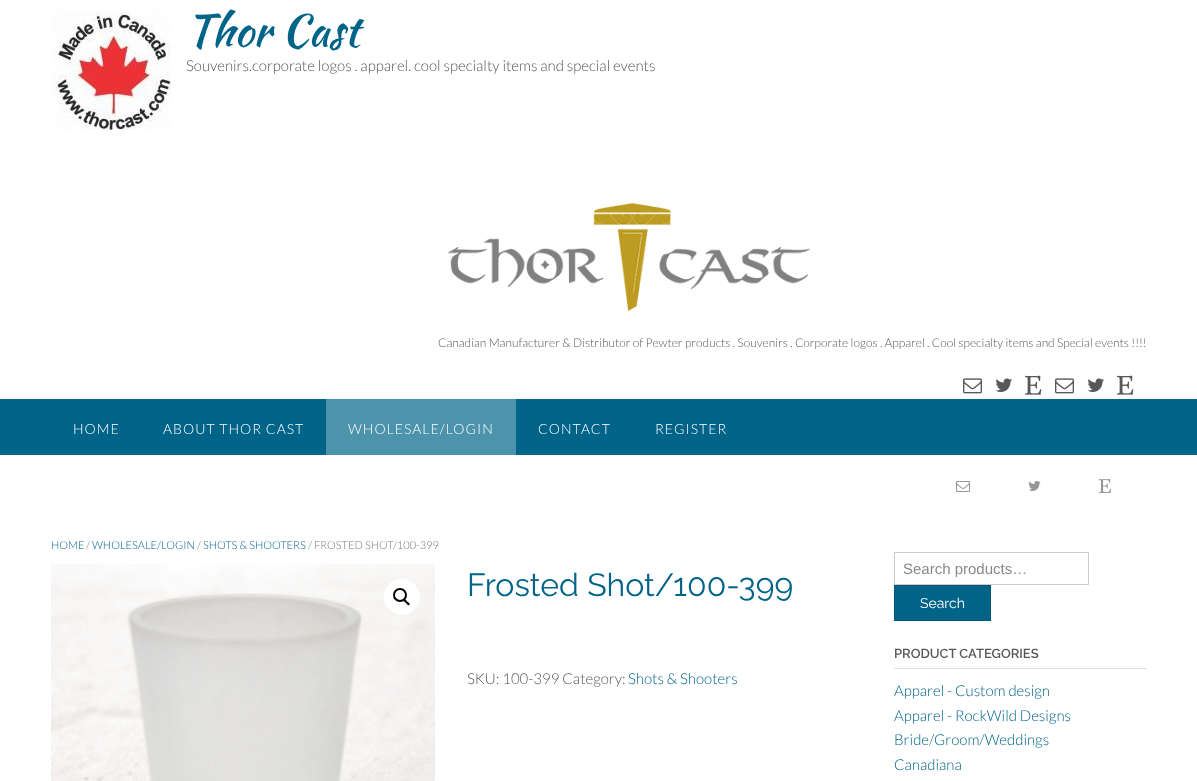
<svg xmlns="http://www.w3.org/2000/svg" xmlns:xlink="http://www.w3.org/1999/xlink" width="1197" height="781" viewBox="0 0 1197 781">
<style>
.cls-1{font:44px Kaushan Script;fill:#006489}
.cls-2{font:300 15px Lato;fill:#58585a}
.cls-3{font:300 12px Lato;fill:#58585a}
.cls-4{font:300 14px Lato;letter-spacing:1px;fill:#ffffff}
.cls-5{font:300 11px Lato;fill:#006489}
.cls-6{font:300 11px Lato;fill:#777777}
.cls-7{font:32px Raleway;fill:#006489}
.cls-8{font:300 15px Lato;fill:#006489}
.cls-9{font:15px Liberation Sans;fill:#8a8a8c}
.cls-10{font:14px Raleway;fill:#ffffff}
.cls-11{font:600 13px Raleway;fill:#58585a}
</style>
<rect width="100%" height="100%" fill="#ffffff"/>
<image xlink:href="image0.png" x="51" y="10" width="120" height="120"/>
<image xlink:href="image1.png" x="448" y="203" width="362" height="108"/>
<image xlink:href="image2.png" x="1055" y="378" width="19" height="16"/>
<image xlink:href="image3.png" x="1087" y="378" width="17" height="14"/>
<image xlink:href="image4.png" x="1117" y="375" width="17" height="20"/>
<image xlink:href="image2.png" x="963" y="378" width="19" height="16"/>
<image xlink:href="image3.png" x="995" y="378" width="17" height="14"/>
<image xlink:href="image4.png" x="1025" y="375" width="17" height="20"/>
<rect fill="#006489" x="0" y="399" width="1197" height="56"/>
<rect fill="#4d93ac" x="326" y="399" width="190" height="56"/>
<image xlink:href="image5.png" x="956" y="481" width="14" height="11"/>
<image xlink:href="image6.png" x="1028" y="481" width="13" height="10"/>
<image xlink:href="image7.png" x="1099" y="479" width="12" height="14"/>
<image xlink:href="image8.png" x="51" y="564" width="384" height="217"/>
<circle fill="#ffffff" cx="402" cy="597" r="18"/>
<circle fill="none" stroke="#000000" stroke-width="2" cx="400" cy="595" r="6"/>
<path fill="#000000" d="M403.5 599.5C405 598 406.5 601 407 601.5C408 602 410.5 604 409.5 605C408 606 406.5 603.5 406 603C405 602 402.5 600.5 403.5 599.5Z"/>
<rect fill="none" stroke="#cccccc" x="894.5" y="552.5" width="194" height="32"/>
<rect fill="#006489" stroke="#005676" x="894.5" y="585.5" width="96" height="35"/>
<rect fill="#e0e0e0" x="894" y="668" width="253" height="1"/>
<text class="cls-1" x="186" y="46">Thor Cast</text>
<text class="cls-2" x="186" y="71">Souvenirs.corporate logos . apparel. cool specialty items and special events</text>
<text class="cls-3" x="438" y="347">Canadian Manufacturer &amp; Distributor of Pewter products . Souvenirs . Corporate logos . Apparel . Cool specialty items and Special events !!!!</text>
<text class="cls-4" x="73" y="434">HOME</text>
<text class="cls-4" x="163" y="434">ABOUT THOR CAST</text>
<text class="cls-4" x="348" y="434">WHOLESALE/LOGIN</text>
<text class="cls-4" x="538" y="434">CONTACT</text>
<text class="cls-4" x="655" y="434">REGISTER</text>
<text class="cls-5" x="51" y="549">HOME</text>
<text class="cls-6" x="86" y="549">/</text>
<text class="cls-5" x="92" y="549">WHOLESALE/LOGIN</text>
<text class="cls-6" x="197" y="549">/</text>
<text class="cls-5" x="203" y="549">SHOTS &amp; SHOOTERS</text>
<text class="cls-6" x="308" y="549">/ FROSTED SHOT/100-399</text>
<text class="cls-7" x="467" y="596">Frosted Shot/100-399</text>
<text class="cls-2" x="467" y="684">SKU: 100-399 Category:</text>
<text class="cls-8" x="628" y="684">Shots &amp; Shooters</text>
<text class="cls-9" x="903" y="574">Search products…</text>
<text class="cls-10" x="920" y="608">Search</text>
<text class="cls-11" x="894" y="658">PRODUCT CATEGORIES</text>
<text class="cls-8"><tspan x="894" y="696">Apparel - Custom design</tspan><tspan x="894" y="721">Apparel - RockWild Designs</tspan><tspan x="894" y="745">Bride/Groom/Weddings</tspan><tspan x="894" y="770">Canadiana</tspan></text>
</svg>
